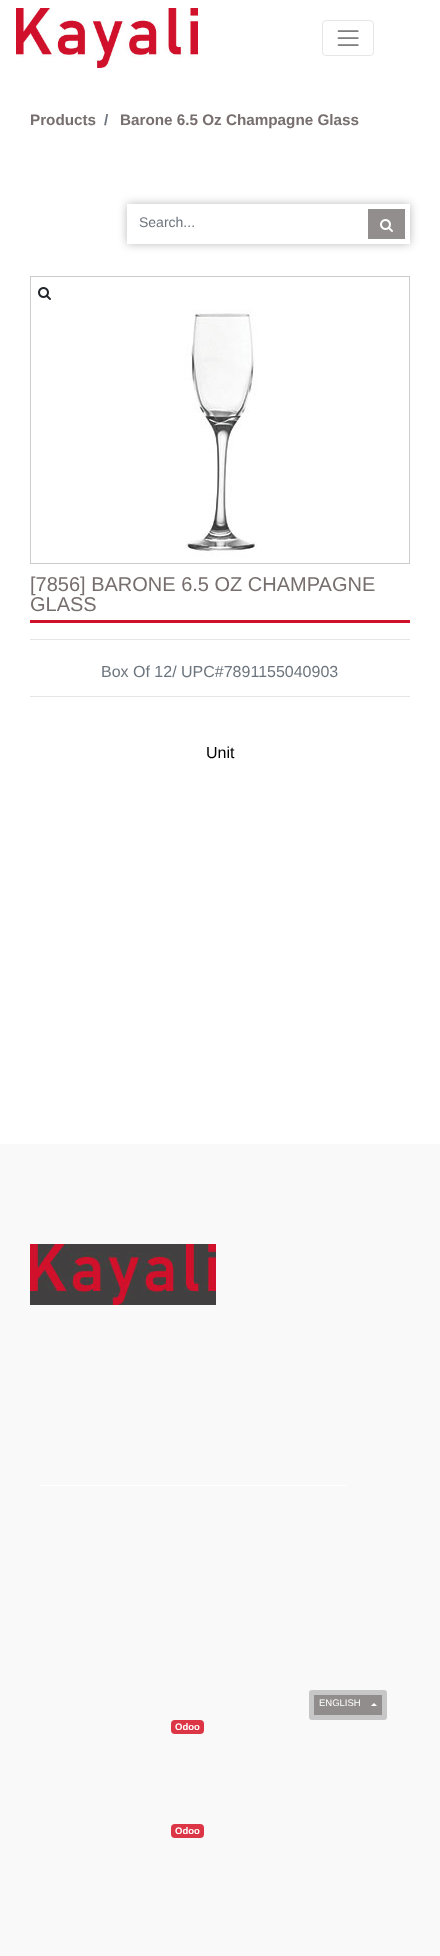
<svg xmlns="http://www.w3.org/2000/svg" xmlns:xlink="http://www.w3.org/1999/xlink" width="440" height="1956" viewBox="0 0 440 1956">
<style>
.cls-1{font:bold 15.25px Arimo;fill:#776e6e}
.cls-2{font:bold 15.25px Arimo;fill:#6c757d}
.cls-3{font:14px Arimo;fill:#6c757d}
.cls-4{font:20px Arimo;fill:#776e6e}
.cls-5{font:16px Arimo;fill:#6c757d}
.cls-6{font:16px Arimo;fill:#000000}
.cls-7{font:9.5px Arimo;fill:#ffffff}
.cls-8{font:bold 9.5px Arimo;fill:#ffffff}
</style>
<defs>
<clipPath id="clip1"><path d="M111 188H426V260H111ZM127 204H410V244H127Z" clip-rule="evenodd"/></clipPath>
</defs>
<rect width="100%" height="100%" fill="#ffffff"/>
<image xlink:href="image0.png" x="16" y="8" width="182" height="60"/>
<rect fill="none" stroke="#e6e6e6" x="322.5" y="20.5" width="51" height="35" rx="3.5"/>
<image xlink:href="image1.png" x="337" y="30" width="22" height="16"/>
<g clip-path="url(#clip1)">
<rect fill="#000000" fill-opacity="0.27" filter="blur(5px)" x="127" y="204" width="283" height="40"/>
</g>
<rect fill="#928e8e" x="368" y="209" width="37" height="30"/>
<image xlink:href="image2.png" x="380" y="219" width="13" height="13"/>
<rect fill="none" stroke="#cccccc" x="30.5" y="276.5" width="379" height="287"/>
<image xlink:href="image3.png" x="38" y="287" width="13" height="13"/>
<image xlink:href="image4.png" x="185" y="309" width="72" height="248"/>
<rect fill="#d0112b" x="30" y="620" width="380" height="3"/>
<rect fill="#e6e6e6" x="30" y="639" width="380" height="1"/>
<rect fill="#e6e6e6" x="30" y="696" width="380" height="1"/>
<rect fill="#f9f9f9" x="0" y="1144" width="440" height="812"/>
<image xlink:href="image5.png" x="30" y="1244" width="186" height="61"/>
<rect fill="#ffffff" x="39" y="1485" width="308" height="1"/>
<rect fill="#928d8d" stroke="#c7c7c7" stroke-width="5" x="311.5" y="1692.5" width="73" height="25" rx="0.5"/>
<path fill="#ffffff" d="M377 1706H371L374 1703Z"/>
<rect fill="#dc3545" x="171" y="1720" width="33" height="14" rx="4"/>
<rect fill="#dc3545" x="171" y="1824" width="33" height="14" rx="4"/>
<text class="cls-1" x="30" y="125">Products</text>
<text class="cls-2" x="104" y="125">/</text>
<text class="cls-1" x="120" y="125">Barone 6.5 Oz Champagne Glass</text>
<text class="cls-3" x="139" y="227">Search...</text>
<text class="cls-4"><tspan x="30" y="591">[7856] BARONE 6.5 OZ CHAMPAGNE</tspan><tspan x="30" y="611">GLASS</tspan></text>
<text class="cls-5" x="101" y="677">Box Of 12/ UPC#7891155040903</text>
<text class="cls-6" x="206" y="758">Unit</text>
<text class="cls-7" x="319" y="1706">ENGLISH</text>
<text class="cls-8" x="175" y="1730">Odoo</text>
<text class="cls-8" x="175" y="1834">Odoo</text>
</svg>
